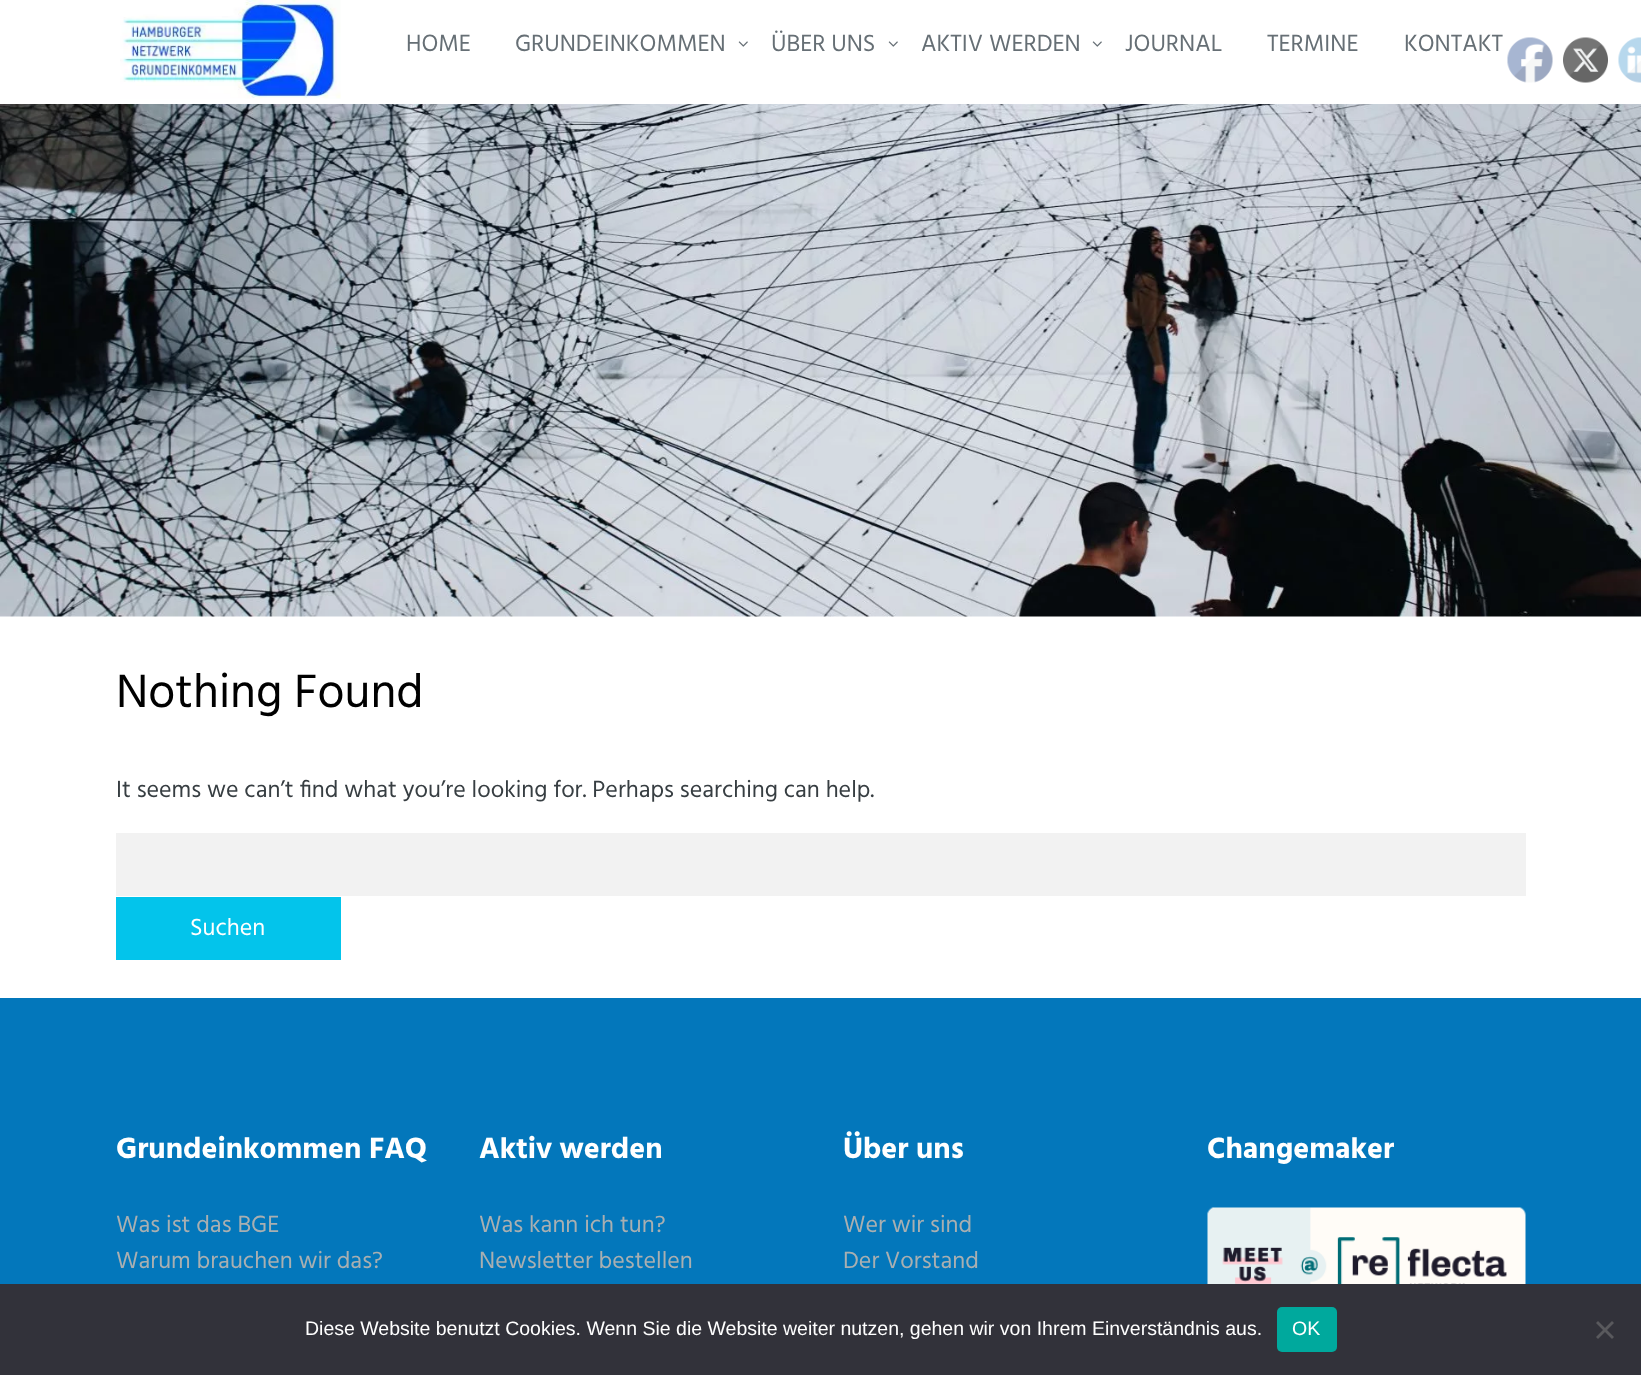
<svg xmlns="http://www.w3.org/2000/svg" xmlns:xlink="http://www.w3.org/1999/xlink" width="1641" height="1375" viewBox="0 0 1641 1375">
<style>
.cls-1{font:24px Hind;fill:#666f75}
.cls-2{font:48px Hind;fill:#000000}
.cls-3{font:24px Hind;fill:#373e42}
.cls-4{font:24px Hind;fill:#ffffff}
.cls-5{font:bold 30px Hind;fill:#ffffff}
.cls-6{font:24px Hind;fill:#a9afb1}
.cls-7{font:19.5px Liberation Sans;fill:#ffffff}
</style>
<rect width="100%" height="100%" fill="#ffffff"/>
<image xlink:href="image0.png" x="120" y="0" width="221" height="99"/>
<image xlink:href="image1.png" x="738" y="41" width="10" height="6"/>
<image xlink:href="image1.png" x="888" y="41" width="10" height="6"/>
<image xlink:href="image1.png" x="1092" y="41" width="10" height="6"/>
<image xlink:href="image2.png" x="1507" y="37" width="46" height="46"/>
<image xlink:href="image3.png" x="1563" y="37" width="45" height="46"/>
<image xlink:href="image4.png" x="1618" y="37" width="23" height="46"/>
<image xlink:href="image5.png" x="0" y="104" width="1641" height="513"/>
<rect fill="#f2f2f2" x="116" y="833" width="1410" height="63"/>
<rect fill="#03c4eb" x="116" y="897" width="225" height="63"/>
<rect fill="#0377bb" x="0" y="998" width="1641" height="286"/>
<image xlink:href="image6.png" x="1207" y="1207" width="319" height="77"/>
<rect fill="#32323a" x="0" y="1284" width="1641" height="91"/>
<rect fill="#00a99d" x="1277" y="1307" width="60" height="45" rx="5"/>
<path fill="#59595d" d="M1612 1321L1614 1323L1598 1339L1596 1337Z"/>
<path fill="#59595d" d="M1596 1323L1598 1321L1614 1337L1612 1339Z"/>
<text class="cls-1" x="406" y="51">HOME</text>
<text class="cls-1" x="515" y="51">GRUNDEINKOMMEN</text>
<text class="cls-1" x="771" y="51">ÜBER UNS</text>
<text class="cls-1" x="921" y="51">AKTIV WERDEN</text>
<text class="cls-1" x="1125" y="51">JOURNAL</text>
<text class="cls-1" x="1267" y="51">TERMINE</text>
<text class="cls-1" x="1404" y="51">KONTAKT</text>
<text class="cls-2" x="116" y="707">Nothing Found</text>
<text class="cls-3" x="116" y="797">It seems we can’t find what you’re looking for. Perhaps searching can help.</text>
<text class="cls-4" x="190" y="935">Suchen</text>
<text class="cls-5" x="116" y="1158">Grundeinkommen FAQ</text>
<text class="cls-6"><tspan x="116" y="1232">Was ist das BGE</tspan><tspan x="116" y="1268">Warum brauchen wir das?</tspan></text>
<text class="cls-5" x="479" y="1158">Aktiv werden</text>
<text class="cls-6"><tspan x="479" y="1232">Was kann ich tun?</tspan><tspan x="479" y="1268">Newsletter bestellen</tspan></text>
<text class="cls-5" x="843" y="1158">Über uns</text>
<text class="cls-6"><tspan x="843" y="1232">Wer wir sind</tspan><tspan x="843" y="1268">Der Vorstand</tspan></text>
<text class="cls-5" x="1207" y="1158">Changemaker</text>
<text class="cls-7" x="305" y="1335">Diese Website benutzt Cookies. Wenn Sie die Website weiter nutzen, gehen wir von Ihrem Einverständnis aus.</text>
<text class="cls-7" x="1292" y="1335">OK</text>
</svg>
